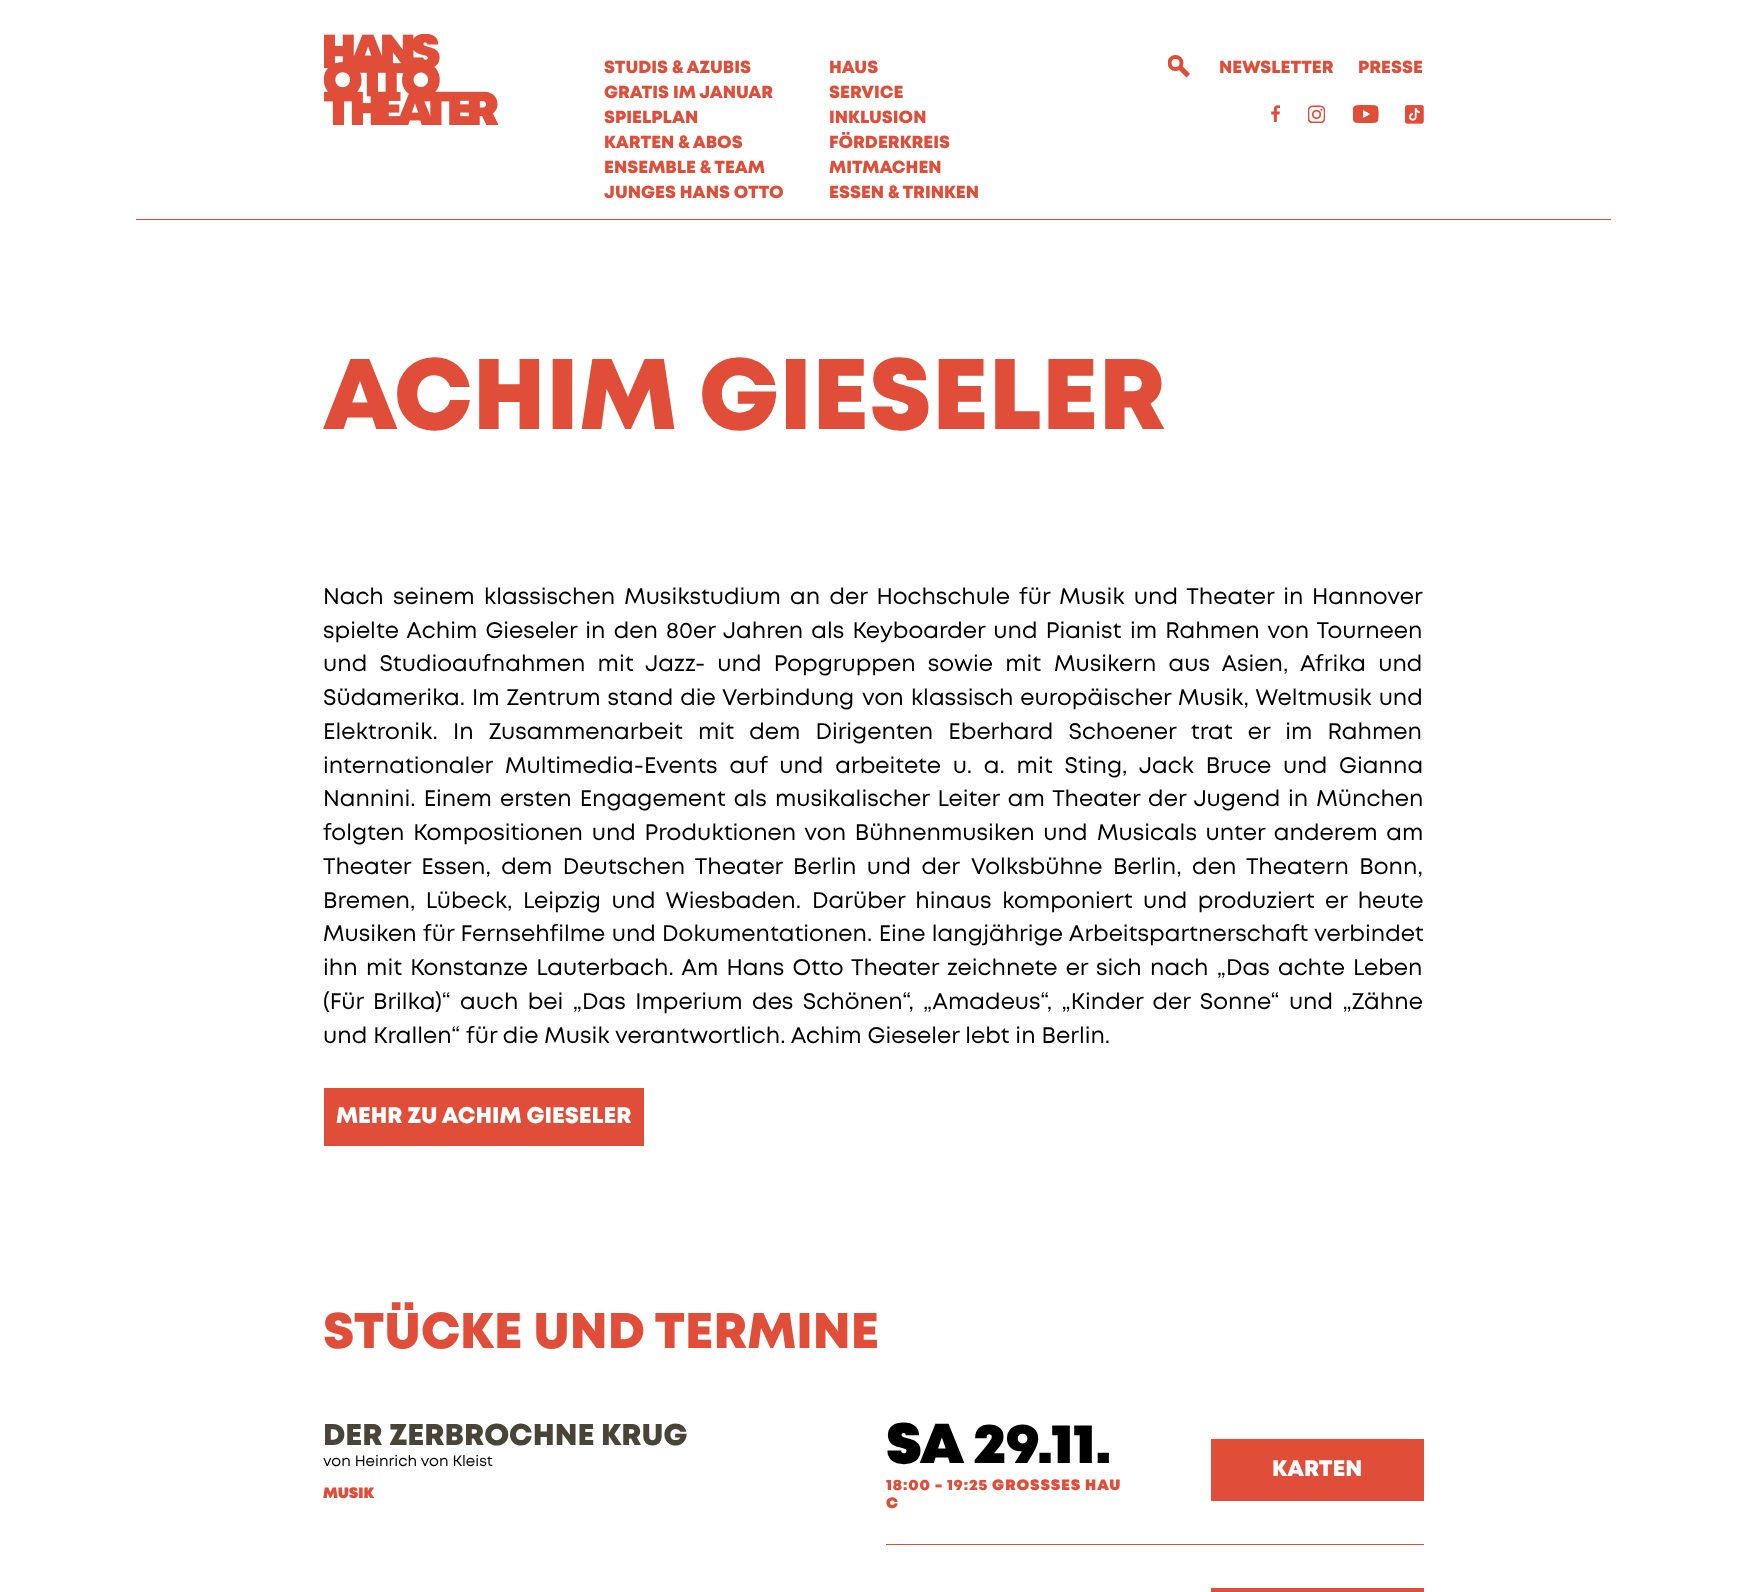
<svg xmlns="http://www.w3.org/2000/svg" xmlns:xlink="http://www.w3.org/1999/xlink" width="1746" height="1592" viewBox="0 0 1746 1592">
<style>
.cls-1{font:17.5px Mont;fill:#e04e39}
.cls-2{font:100px Mont;fill:#e04e39}
.cls-3{font:22.5px 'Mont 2';fill:#000000}
.cls-4{font:22.5px Mont;fill:#ffffff}
.cls-5{font:50px Mont;fill:#e04e39}
.cls-6{font:30px Mont;fill:#484538}
.cls-7{font:15px 'Mont 2';fill:#000000}
.cls-8{font:15px 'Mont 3';fill:#e04e39}
.cls-9{font:56.25px 'Mont 3';fill:#000000}
.cls-10{font:15px 'Mont 3';letter-spacing:0.9px;fill:#e04e39}
</style>
<defs>
<clipPath id="clip1"><rect x="1168" y="55" width="22" height="22"/></clipPath>
</defs>
<rect width="100%" height="100%" fill="#ffffff"/>
<rect fill="#e04e39" x="136" y="219" width="1475" height="1"/>
<image xlink:href="image0.png" x="324" y="34" width="174" height="91"/>
<g clip-path="url(#clip1)">
<circle fill="none" stroke="#e04e39" stroke-width="4" cx="1175.5" cy="63" r="6"/>
</g>
<path fill="#e04e39" d="M1178 69L1181.5 65L1190 74L1186.5 77.5Z"/>
<image xlink:href="image1.png" x="1271" y="105" width="9" height="17"/>
<image xlink:href="image2.png" x="1308" y="105" width="17" height="18"/>
<image xlink:href="image3.png" x="1353" y="105" width="26" height="18"/>
<image xlink:href="image4.png" x="1405" y="105" width="19" height="19"/>
<rect fill="#e04e39" x="324" y="1088" width="320" height="58"/>
<rect fill="#e04e39" x="886" y="1544" width="538" height="1"/>
<rect fill="#e04e39" x="1211" y="1439" width="213" height="62"/>
<rect fill="#e04e39" x="1211" y="1588" width="213" height="4"/>
<text class="cls-1"><tspan x="604" y="73">STUDIS &amp; AZUBIS</tspan><tspan x="604" y="98">GRATIS IM JANUAR</tspan><tspan x="604" y="123">SPIELPLAN</tspan><tspan x="604" y="148">KARTEN &amp; ABOS</tspan><tspan x="604" y="173">ENSEMBLE &amp; TEAM</tspan><tspan x="604" y="198">JUNGES HANS OTTO</tspan></text>
<text class="cls-1"><tspan x="829" y="73">HAUS</tspan><tspan x="829" y="98">SERVICE</tspan><tspan x="829" y="123">INKLUSION</tspan><tspan x="829" y="148">FÖRDERKREIS</tspan><tspan x="829" y="173">MITMACHEN</tspan><tspan x="829" y="198">ESSEN &amp; TRINKEN</tspan></text>
<text class="cls-1" x="1219" y="73">NEWSLETTER</text>
<text class="cls-1" x="1358" y="73">PRESSE</text>
<text class="cls-2" x="323" y="429">ACHIM GIESELER</text>
<text class="cls-3" x="323" y="604">Nach</text>
<text class="cls-3" x="393" y="604" word-spacing="3.25">seinem klassischen Musikstudium an der Hochschule für Musik und Theater in</text>
<text class="cls-3" x="1312" y="604">Hannover</text>
<text class="cls-3" x="323" y="638" word-spacing="2.25">spielte Achim Gieseler in den 80er Jahren als Keyboarder und Pianist</text>
<text class="cls-3" x="1130" y="638" word-spacing="2.25">im Rahmen von Tourneen</text>
<text class="cls-3" x="323" y="671" word-spacing="6.25">und Studioaufnahmen mit Jazz- und Popgruppen sowie mit</text>
<text class="cls-3" x="1054" y="671" word-spacing="6.25">Musikern aus Asien, Afrika und</text>
<text class="cls-3" x="323" y="705" word-spacing="1">Südamerika. Im Zentrum stand die Verbindung</text>
<text class="cls-3" x="862" y="705" word-spacing="1">von klassisch europäischer Musik, Weltmusik und</text>
<text class="cls-3" x="323" y="739" word-spacing="9.25">Elektronik. In Zusammenarbeit</text>
<text class="cls-3" x="698" y="739" word-spacing="9.25">mit dem Dirigenten Eberhard Schoener trat er im Rahmen</text>
<text class="cls-3" x="323" y="773">internationaler</text>
<text class="cls-3" x="505" y="773" word-spacing="5.9">Multimedia-Events auf und arbeitete u. a. mit Sting, Jack Bruce und Gianna</text>
<text class="cls-3" x="323" y="806" word-spacing="2.25">Nannini. Einem ersten Engagement als musikalischer Leiter am Theater der Jugend</text>
<text class="cls-3" x="1288" y="806" word-spacing="2.25">in München</text>
<text class="cls-3" x="323" y="840" word-spacing="2.75">folgten Kompositionen und Produktionen von Bühnenmusiken und</text>
<text class="cls-3" x="1097" y="840" word-spacing="2.75">Musicals unter anderem am</text>
<text class="cls-3" x="323" y="874" word-spacing="4.5">Theater Essen, dem Deutschen Theater Berlin und der</text>
<text class="cls-3" x="971" y="874" word-spacing="4.5">Volksbühne Berlin, den Theatern Bonn,</text>
<text class="cls-3" x="323" y="908" word-spacing="4.5">Bremen, Lübeck, Leipzig und Wiesbaden.</text>
<text class="cls-3" x="812" y="908" word-spacing="4.5">Darüber hinaus komponiert und produziert er heute</text>
<text class="cls-3" x="323" y="941" word-spacing="0.5">Musiken für Fernsehfilme und</text>
<text class="cls-3" x="662" y="941" word-spacing="0.5">Dokumentationen. Eine langjährige Arbeitspartnerschaft verbindet</text>
<text class="cls-3" x="323" y="975">ihn</text>
<text class="cls-3" x="366" y="975" word-spacing="2.25">mit Konstanze Lauterbach. Am Hans Otto Theater zeichnete er sich</text>
<text class="cls-3" x="1150" y="975" word-spacing="2.25">nach „Das achte Leben</text>
<text class="cls-3" x="323" y="1009" word-spacing="3.5">(Für Brilka)“ auch bei „Das Imperium des Schönen“,</text>
<text class="cls-3" x="923" y="1009" word-spacing="3.5">„Amadeus“, „Kinder der Sonne“ und „Zähne</text>
<text class="cls-3" x="323" y="1043">und Krallen“ für die Musik verantwortlich. Achim Gieseler lebt in Berlin.</text>
<text class="cls-4" x="336" y="1123">MEHR ZU ACHIM GIESELER</text>
<text class="cls-5" x="323" y="1348">STÜCKE UND TERMINE</text>
<text class="cls-6" x="323" y="1445">DER ZERBROCHNE KRUG</text>
<text class="cls-7" x="323" y="1466">von Heinrich von Kleist</text>
<text class="cls-8" x="323" y="1498">MUSIK</text>
<text class="cls-9" x="886" y="1463">SA 29.11.</text>
<text class="cls-4" x="1272" y="1476">KARTEN</text>
<text class="cls-10"><tspan x="886" y="1490">18:00 - 19:25 GROSSSES HAU</tspan><tspan x="886" y="1508">C</tspan></text>
</svg>
